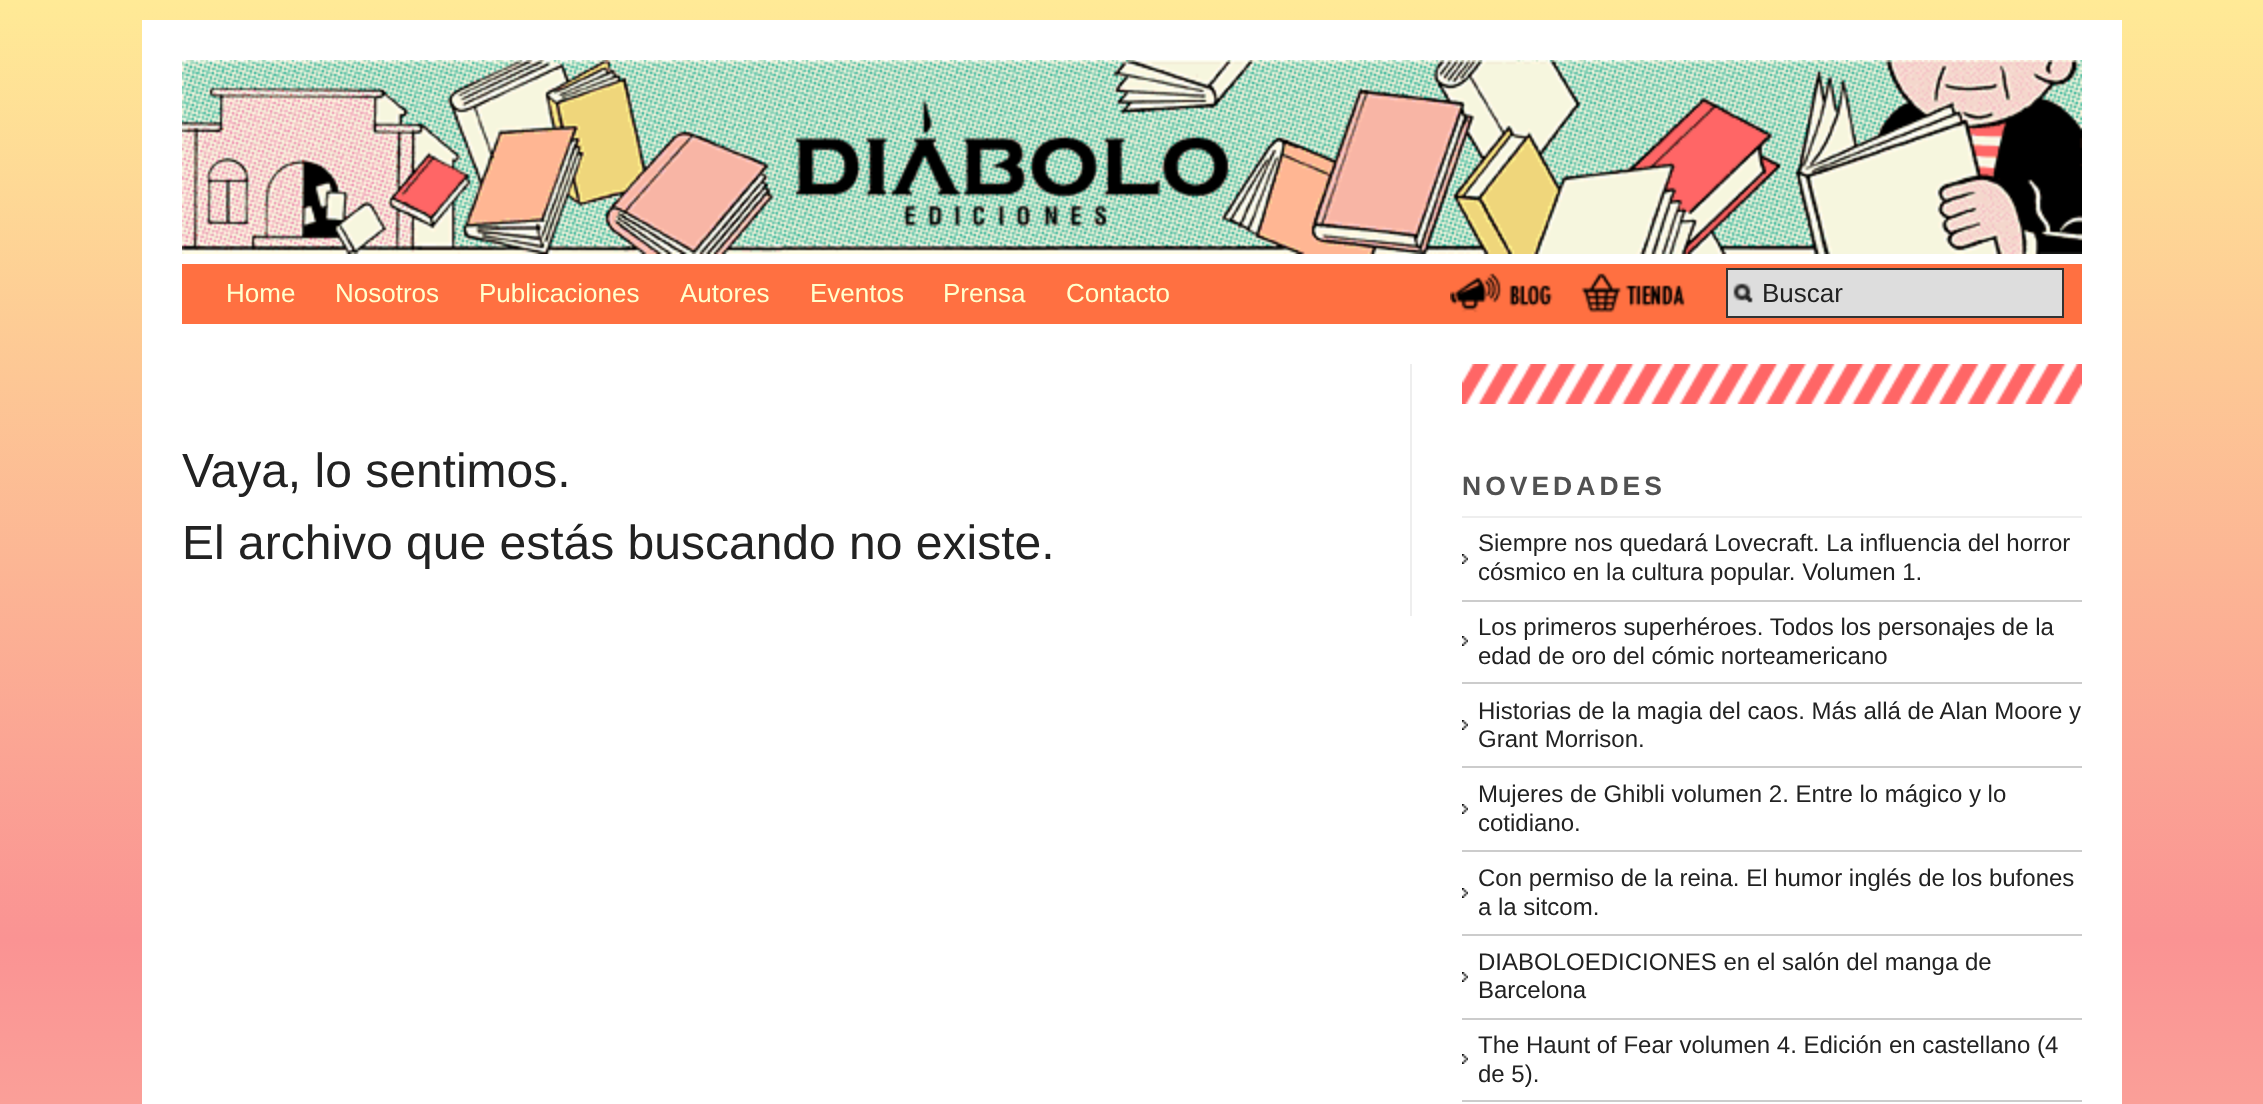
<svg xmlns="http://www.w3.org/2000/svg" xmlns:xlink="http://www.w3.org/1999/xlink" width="2263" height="1104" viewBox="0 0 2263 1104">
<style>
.cls-1{font:26px Liberation Sans;fill:#ffffcc}
.cls-2{font:26px Liberation Sans;fill:#222222}
.cls-3{font:48px Liberation Sans;fill:#222222}
.cls-4{font:bold 26.5px Liberation Sans;letter-spacing:4px;fill:#515151}
.cls-5{font:24px Liberation Sans;fill:#222222}
</style>
<defs>
<linearGradient id="g1" gradientUnits="userSpaceOnUse" x1="0" y1="0" x2="0" y2="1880"><stop offset="0" stop-color="#ffea96"/><stop offset="0.5" stop-color="#fa9393"/><stop offset="1" stop-color="#fad9b1"/></linearGradient>
</defs>
<rect width="100%" height="100%" fill="#ffffff"/>
<rect fill="url(#g1)" x="0" y="0" width="2263" height="1104"/>
<rect fill="#ffffff" x="142" y="20" width="1980" height="1084"/>
<image xlink:href="image0.png" x="182" y="60" width="1900" height="194"/>
<rect fill="#ff7041" x="182" y="264" width="1900" height="60"/>
<image xlink:href="image1.png" x="1450" y="273" width="103" height="40"/>
<image xlink:href="image2.png" x="1581" y="273" width="104" height="40"/>
<rect fill="#dddddd" x="1728" y="270" width="334" height="46"/>
<image xlink:href="image3.png" x="1733" y="283" width="20" height="20"/>
<rect fill="none" stroke="#333333" stroke-width="2" x="1727" y="269" width="336" height="48"/>
<rect fill="#eeeeee" x="1410" y="364" width="2" height="252"/>
<image xlink:href="image4.png" x="1462" y="364" width="620" height="40"/>
<rect fill="#eeeeee" x="1462" y="516" width="620" height="2"/>
<image xlink:href="image5.png" x="1462" y="554" width="6" height="10"/>
<rect fill="#cccccc" x="1462" y="600" width="620" height="2"/>
<image xlink:href="image5.png" x="1462" y="636" width="6" height="10"/>
<rect fill="#cccccc" x="1462" y="682" width="620" height="2"/>
<image xlink:href="image5.png" x="1462" y="720" width="6" height="10"/>
<rect fill="#cccccc" x="1462" y="766" width="620" height="2"/>
<image xlink:href="image5.png" x="1462" y="804" width="6" height="10"/>
<rect fill="#cccccc" x="1462" y="850" width="620" height="2"/>
<image xlink:href="image5.png" x="1462" y="888" width="6" height="10"/>
<rect fill="#cccccc" x="1462" y="934" width="620" height="2"/>
<image xlink:href="image5.png" x="1462" y="972" width="6" height="10"/>
<rect fill="#cccccc" x="1462" y="1018" width="620" height="2"/>
<image xlink:href="image5.png" x="1462" y="1054" width="6" height="10"/>
<rect fill="#cccccc" x="1462" y="1100" width="620" height="2"/>
<text class="cls-1" x="226" y="302">Home</text>
<text class="cls-1" x="335" y="302">Nosotros</text>
<text class="cls-1" x="479" y="302">Publicaciones</text>
<text class="cls-1" x="680" y="302">Autores</text>
<text class="cls-1" x="810" y="302">Eventos</text>
<text class="cls-1" x="943" y="302">Prensa</text>
<text class="cls-1" x="1066" y="302">Contacto</text>
<text class="cls-2" x="1762" y="302">Buscar</text>
<text class="cls-3"><tspan x="182" y="487">Vaya, lo sentimos.</tspan><tspan x="182" y="559">El archivo que estás buscando no existe.</tspan></text>
<text class="cls-4" x="1462" y="495">NOVEDADES</text>
<text class="cls-5"><tspan x="1478" y="551">Siempre nos quedará Lovecraft. La influencia del horror</tspan><tspan x="1478" y="580">cósmico en la cultura popular. Volumen 1.</tspan></text>
<text class="cls-5"><tspan x="1478" y="635">Los primeros superhéroes. Todos los personajes de la</tspan><tspan x="1478" y="664">edad de oro del cómic norteamericano</tspan></text>
<text class="cls-5"><tspan x="1478" y="719">Historias de la magia del caos. Más allá de Alan Moore y</tspan><tspan x="1478" y="747">Grant Morrison.</tspan></text>
<text class="cls-5"><tspan x="1478" y="802">Mujeres de Ghibli volumen 2. Entre lo mágico y lo</tspan><tspan x="1478" y="831">cotidiano.</tspan></text>
<text class="cls-5"><tspan x="1478" y="886">Con permiso de la reina. El humor inglés de los bufones</tspan><tspan x="1478" y="915">a la sitcom.</tspan></text>
<text class="cls-5"><tspan x="1478" y="970">DIABOLOEDICIONES en el salón del manga de</tspan><tspan x="1478" y="998">Barcelona</tspan></text>
<text class="cls-5"><tspan x="1478" y="1053">The Haunt of Fear volumen 4. Edición en castellano (4</tspan><tspan x="1478" y="1082">de 5).</tspan></text>
</svg>
